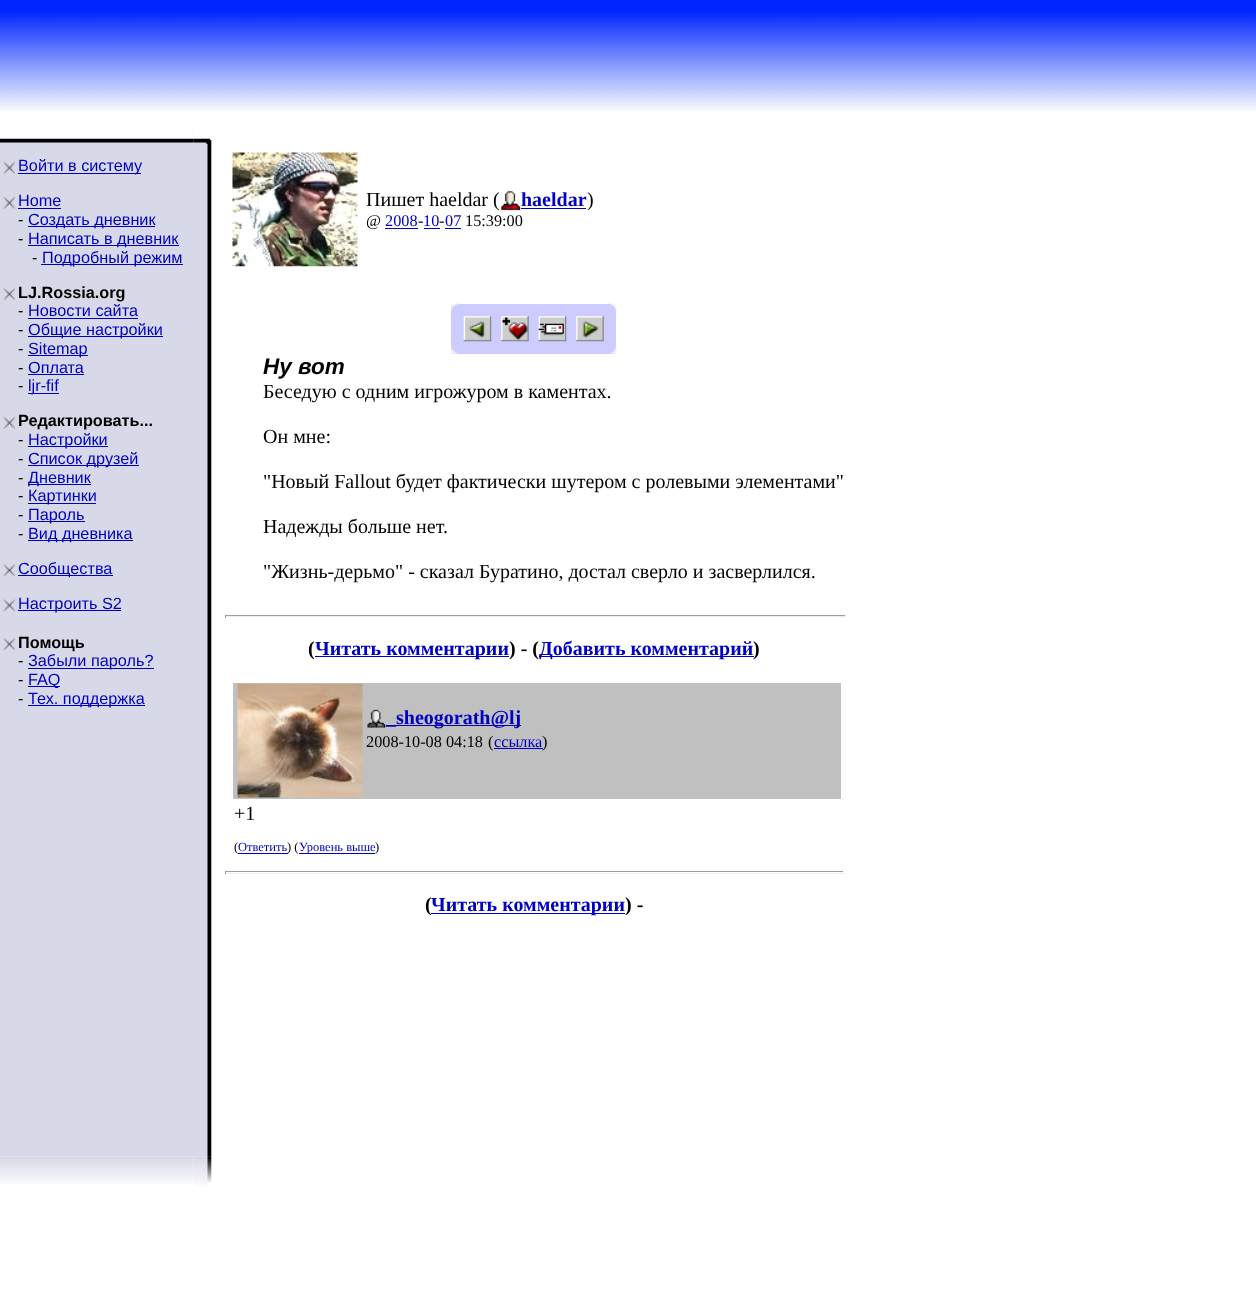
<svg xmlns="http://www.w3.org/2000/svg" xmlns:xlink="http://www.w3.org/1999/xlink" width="1256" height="1310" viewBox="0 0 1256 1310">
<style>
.cls-1{font:16.25px Liberation Sans;fill:#0000c0}
.cls-2{font:16.25px Liberation Sans;fill:#000000}
.cls-3{font:bold 16.25px Liberation Sans;fill:#000000}
.cls-4{font:20px Liberation Serif;fill:#000000}
.cls-5{font:bold 20px Liberation Serif;fill:#0000c0}
.cls-6{font:16.25px Liberation Serif;fill:#000000}
.cls-7{font:16.25px Liberation Serif;fill:#0000c0}
.cls-8{font:italic bold 22.5px Liberation Sans;fill:#000000}
.cls-9{font:bold 20px Liberation Serif;fill:#000000}
.cls-10{font:12.5px Liberation Serif;fill:#000000}
.cls-11{font:12.5px Liberation Serif;fill:#0000c0}
</style>
<rect width="100%" height="100%" fill="#ffffff"/>
<image xlink:href="image0.png" x="0" y="0" width="1256" height="111"/>
<rect fill="#d7d9e8" x="0" y="125" width="194" height="1031"/>
<image xlink:href="image1.png" x="0" y="125" width="194" height="18"/>
<image xlink:href="image2.png" x="3" y="161" width="12" height="13"/>
<rect fill="#0000c0" x="18" y="173" width="123" height="1"/>
<image xlink:href="image2.png" x="3" y="196" width="12" height="13"/>
<rect fill="#0000c0" x="18" y="208" width="43" height="1"/>
<rect fill="#0000c0" x="28" y="226" width="127" height="1"/>
<rect fill="#0000c0" x="28" y="245" width="151" height="1"/>
<rect fill="#0000c0" x="41" y="264" width="142" height="1"/>
<image xlink:href="image3.png" x="3" y="287" width="12" height="13"/>
<rect fill="#0000c0" x="28" y="318" width="110" height="1"/>
<rect fill="#0000c0" x="28" y="336" width="135" height="1"/>
<rect fill="#0000c0" x="28" y="355" width="60" height="1"/>
<rect fill="#0000c0" x="28" y="374" width="56" height="1"/>
<rect fill="#0000c0" x="28" y="393" width="31" height="1"/>
<image xlink:href="image2.png" x="3" y="416" width="12" height="13"/>
<rect fill="#0000c0" x="28" y="446" width="80" height="1"/>
<rect fill="#0000c0" x="28" y="465" width="111" height="1"/>
<rect fill="#0000c0" x="28" y="484" width="63" height="1"/>
<rect fill="#0000c0" x="28" y="503" width="68" height="1"/>
<rect fill="#0000c0" x="28" y="521" width="57" height="1"/>
<rect fill="#0000c0" x="28" y="540" width="105" height="1"/>
<image xlink:href="image4.png" x="3" y="563" width="12" height="14"/>
<rect fill="#0000c0" x="18" y="575" width="95" height="1"/>
<image xlink:href="image4.png" x="3" y="598" width="12" height="14"/>
<rect fill="#0000c0" x="18" y="610" width="103" height="1"/>
<image xlink:href="image5.png" x="3" y="637" width="12" height="13"/>
<rect fill="#0000c0" x="28" y="668" width="126" height="1"/>
<rect fill="#0000c0" x="28" y="686" width="32" height="1"/>
<rect fill="#0000c0" x="28" y="705" width="117" height="1"/>
<image xlink:href="image6.png" x="194" y="153" width="18" height="1004"/>
<image xlink:href="image7.png" x="193" y="125" width="19" height="28"/>
<image xlink:href="image8.png" x="194" y="1156" width="18" height="1"/>
<image xlink:href="image9.png" x="232" y="152" width="126" height="115"/>
<image xlink:href="image10.png" x="501" y="191" width="20" height="20"/>
<rect fill="#0000c0" x="521" y="208" width="65" height="1"/>
<rect fill="#0000c0" x="385" y="228" width="33" height="1"/>
<rect fill="#0000c0" x="424" y="228" width="16" height="1"/>
<rect fill="#0000c0" x="445" y="228" width="16" height="1"/>
<rect fill="#ccccff" x="451" y="304" width="165" height="50"/>
<image xlink:href="image11.png" x="451" y="303" width="9" height="8"/>
<image xlink:href="image12.png" x="607" y="303" width="10" height="10"/>
<image xlink:href="image13.png" x="463" y="316" width="29" height="26"/>
<image xlink:href="image14.png" x="501" y="316" width="28" height="26"/>
<image xlink:href="image15.png" x="538" y="316" width="29" height="26"/>
<image xlink:href="image16.png" x="576" y="316" width="28" height="26"/>
<image xlink:href="image17.png" x="451" y="347" width="7" height="7"/>
<image xlink:href="image18.png" x="609" y="345" width="8" height="9"/>
<rect fill="#9f9f9f" x="225" y="615" width="621" height="1"/>
<rect fill="#eeeeee" x="845" y="615" width="1" height="3"/>
<rect fill="#eeeeee" x="225" y="616" width="621" height="1"/>
<rect fill="#9f9f9f" x="225" y="615" width="1" height="3"/>
<rect fill="#0000c0" x="315" y="656" width="194" height="1"/>
<rect fill="#0000c0" x="539" y="656" width="215" height="1"/>
<rect fill="#c0c0c0" x="233" y="683" width="608" height="116"/>
<image xlink:href="image19.png" x="237" y="683" width="126" height="115"/>
<image xlink:href="image20.png" x="367" y="709" width="19" height="19"/>
<rect fill="#0000c0" x="386" y="725" width="135" height="1"/>
<rect fill="#0000c0" x="494" y="748" width="49" height="1"/>
<rect fill="#0000c0" x="238" y="853" width="50" height="1"/>
<rect fill="#0000c0" x="299" y="853" width="76" height="1"/>
<rect fill="#9f9f9f" x="225" y="871" width="619" height="1"/>
<rect fill="#eeeeee" x="843" y="871" width="1" height="3"/>
<rect fill="#eeeeee" x="225" y="873" width="619" height="1"/>
<rect fill="#9f9f9f" x="225" y="871" width="1" height="3"/>
<rect fill="#0000c0" x="431" y="913" width="194" height="1"/>
<image xlink:href="image21.png" x="0" y="1156" width="194" height="28"/>
<image xlink:href="image22.png" x="194" y="1156" width="18" height="30"/>
<text class="cls-1" x="18" y="171">Войти в систему</text>
<text class="cls-1" x="18" y="206">Home</text>
<text class="cls-2" x="18" y="225">-</text>
<text class="cls-1" x="28" y="225">Создать дневник</text>
<text class="cls-2" x="18" y="244">-</text>
<text class="cls-1" x="28" y="244">Написать в дневник</text>
<text class="cls-2" x="32" y="263">-</text>
<text class="cls-1" x="42" y="263">Подробный режим</text>
<text class="cls-3" x="18" y="298">LJ.Rossia.org</text>
<text class="cls-2" x="18" y="316">-</text>
<text class="cls-1" x="28" y="316">Новости сайта</text>
<text class="cls-2" x="18" y="335">-</text>
<text class="cls-1" x="28" y="335">Общие настройки</text>
<text class="cls-2" x="18" y="354">-</text>
<text class="cls-1" x="28" y="354">Sitemap</text>
<text class="cls-2" x="18" y="373">-</text>
<text class="cls-1" x="28" y="373">Оплата</text>
<text class="cls-2" x="18" y="391">-</text>
<text class="cls-1" x="28" y="391">ljr-fif</text>
<text class="cls-3" x="18" y="426">Редактировать...</text>
<text class="cls-2" x="18" y="445">-</text>
<text class="cls-1" x="28" y="445">Настройки</text>
<text class="cls-2" x="18" y="464">-</text>
<text class="cls-1" x="28" y="464">Список друзей</text>
<text class="cls-2" x="18" y="483">-</text>
<text class="cls-1" x="28" y="483">Дневник</text>
<text class="cls-2" x="18" y="501">-</text>
<text class="cls-1" x="28" y="501">Картинки</text>
<text class="cls-2" x="18" y="520">-</text>
<text class="cls-1" x="28" y="520">Пароль</text>
<text class="cls-2" x="18" y="539">-</text>
<text class="cls-1" x="28" y="539">Вид дневника</text>
<text class="cls-1" x="18" y="574">Сообщества</text>
<text class="cls-1" x="18" y="609">Настроить S2</text>
<text class="cls-3" x="18" y="648">Помощь</text>
<text class="cls-2" x="18" y="666">-</text>
<text class="cls-1" x="28" y="666">Забыли пароль?</text>
<text class="cls-2" x="18" y="685">-</text>
<text class="cls-1" x="28" y="685">FAQ</text>
<text class="cls-2" x="18" y="704">-</text>
<text class="cls-1" x="28" y="704">Тех. поддержка</text>
<text class="cls-4" x="366" y="206">Пишет haeldar (</text>
<text class="cls-5" x="521" y="206">haeldar</text>
<text class="cls-4" x="587" y="206">)</text>
<text class="cls-6" x="366" y="226">@</text>
<text class="cls-7" x="385" y="226">2008</text>
<text class="cls-6" x="418" y="226">-</text>
<text class="cls-7" x="423" y="226">10</text>
<text class="cls-6" x="439" y="226">-</text>
<text class="cls-7" x="445" y="226">07</text>
<text class="cls-6" x="465" y="226">15:39:00</text>
<text class="cls-8" x="263" y="374">Ну вот</text>
<text class="cls-4" x="263" y="398">Беседую с одним игрожуром в каментах.</text>
<text class="cls-4" x="263" y="443">Он мне:</text>
<text class="cls-4" x="263" y="488">"Новый Fallout будет фактически шутером с ролевыми элементами"</text>
<text class="cls-4" x="263" y="533">Надежды больше нет.</text>
<text class="cls-4" x="263" y="578">"Жизнь-дерьмо" - сказал Буратино, достал сверло и засверлился.</text>
<text class="cls-9" x="308" y="655">(</text>
<text class="cls-5" x="315" y="655">Читать комментарии</text>
<text class="cls-9" x="509" y="655">) - (</text>
<text class="cls-5" x="539" y="655">Добавить комментарий</text>
<text class="cls-9" x="753" y="655">)</text>
<text class="cls-5" x="386" y="724">_sheogorath@lj</text>
<text class="cls-6" x="366" y="747">2008-10-08 04:18</text>
<text class="cls-6" x="488" y="747">(</text>
<text class="cls-7" x="494" y="747">ссылка</text>
<text class="cls-6" x="542" y="747">)</text>
<text class="cls-4" x="234" y="820">+1</text>
<text class="cls-10" x="234" y="851">(</text>
<text class="cls-11" x="238" y="851">Ответить</text>
<text class="cls-10" x="287" y="851">) (</text>
<text class="cls-11" x="299" y="851">Уровень выше</text>
<text class="cls-10" x="375" y="851">)</text>
<text class="cls-9" x="425" y="911">(</text>
<text class="cls-5" x="431" y="911">Читать комментарии</text>
<text class="cls-9" x="625" y="911">) -</text>
</svg>
